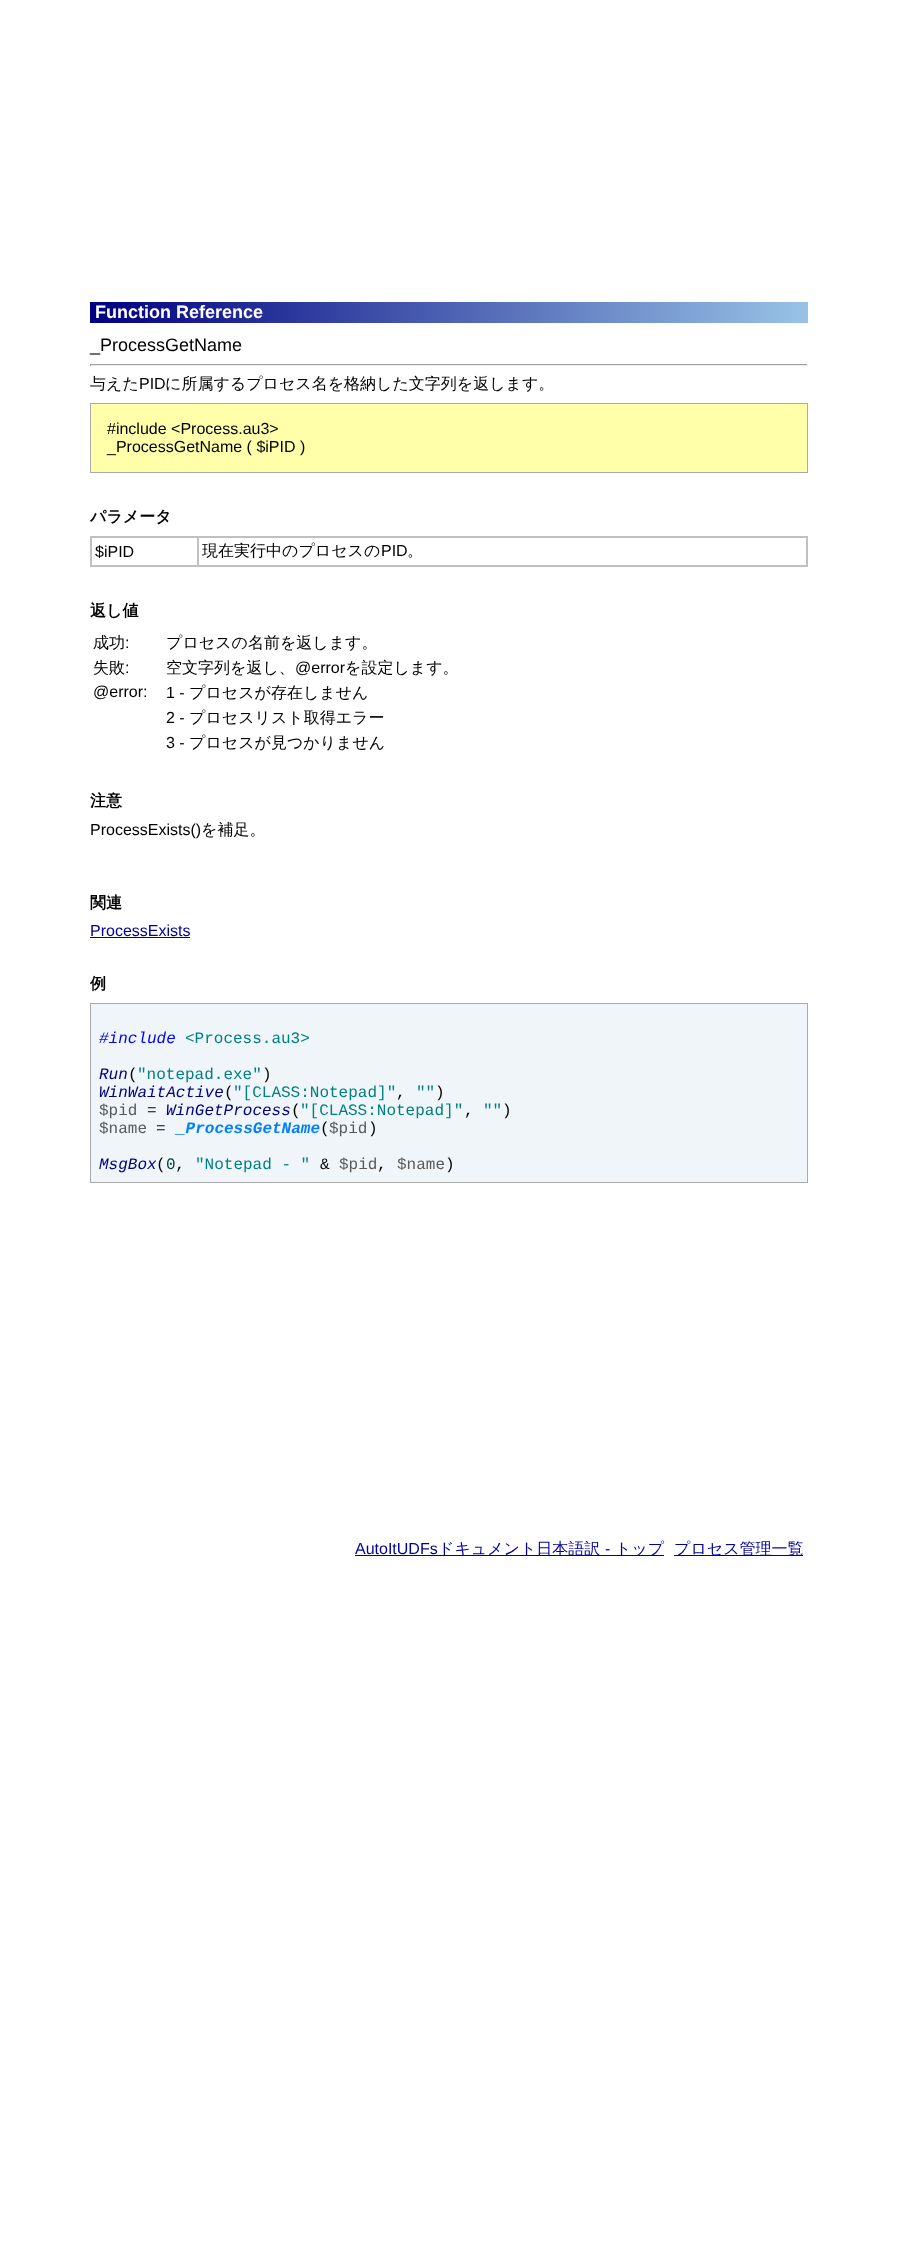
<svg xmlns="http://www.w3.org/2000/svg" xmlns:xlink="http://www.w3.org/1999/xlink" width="898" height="2263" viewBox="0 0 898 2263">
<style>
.cls-1{font:bold 18px Liberation Sans;fill:#ffffff}
.cls-2{font:18px Liberation Sans;fill:#000000}
.cls-3{font:500 16px WenQuanYi Zen Hei;fill:#000000}
.cls-4{font:16px Liberation Sans;fill:#000000}
.cls-5{font:bold 16px WenQuanYi Zen Hei;fill:#000000}
.cls-6{font:16px Liberation Sans;fill:#000099}
.cls-7{font:italic 16px Liberation Mono;fill:#0000ff}
.cls-8{font:16px Liberation Mono;fill:#008080}
.cls-9{font:italic 16px Liberation Mono;fill:#000080}
.cls-10{font:16px Liberation Mono;fill:#000000}
.cls-11{font:16px Liberation Mono;fill:#5a5a5a}
.cls-12{font:italic bold 16px Liberation Mono;fill:#0080ff}
.cls-13{font:16px Liberation Mono;fill:#004040}
.cls-14{font:500 16px WenQuanYi Zen Hei;fill:#000099}
</style>
<defs>
<linearGradient id="g1" gradientUnits="userSpaceOnUse" x1="808" y1="313" x2="90" y2="313"><stop offset="0" stop-color="#98c3e6"/><stop offset="1" stop-color="#010080"/></linearGradient>
</defs>
<rect width="100%" height="100%" fill="#ffffff"/>
<rect fill="url(#g1)" x="90" y="302" width="718" height="21"/>
<rect fill="#9f9f9f" x="90" y="364" width="718" height="1"/>
<rect fill="#eeeeee" x="807" y="364" width="1" height="2"/>
<rect fill="#eeeeee" x="90" y="365" width="718" height="1"/>
<rect fill="#9f9f9f" x="90" y="364" width="1" height="2"/>
<rect fill="#ffffaa" stroke="#aaaaaa" x="90.5" y="403.5" width="717" height="69"/>
<rect fill="none" stroke="#c0c0c0" x="90.5" y="536.5" width="717" height="30"/>
<rect fill="none" stroke="#c0c0c0" x="91.5" y="537.5" width="106" height="28"/>
<rect fill="none" stroke="#c0c0c0" x="198.5" y="537.5" width="608" height="28"/>
<rect fill="#000099" x="90" y="937" width="100" height="1"/>
<rect fill="#f0f5fa" stroke="#aaaaaa" x="90.5" y="1003.5" width="717" height="179"/>
<rect fill="#000099" x="355" y="1555" width="309" height="1"/>
<rect fill="#000099" x="674" y="1555" width="129" height="1"/>
<text class="cls-1" x="95" y="318">Function Reference</text>
<text class="cls-2" x="90" y="351">_ProcessGetName</text>
<text class="cls-3" x="90" y="389">与えた</text>
<text class="cls-4" x="139" y="389">PID</text>
<text class="cls-3" x="165" y="389">に所属するプロセス名を格納した文字列を返します。</text>
<text class="cls-4"><tspan x="107" y="434">#include &lt;Process.au3&gt;</tspan><tspan x="107" y="452">_ProcessGetName ( $iPID )</tspan></text>
<text class="cls-5" x="90" y="522">パラメータ</text>
<text class="cls-4" x="95" y="557">$iPID</text>
<text class="cls-3" x="202" y="556">現在実行中のプロセスの</text>
<text class="cls-4" x="381" y="556">PID</text>
<text class="cls-3" x="407" y="556">。</text>
<text class="cls-5" x="90" y="616">返し値</text>
<text class="cls-3" x="93" y="648">成功</text>
<text class="cls-4" x="125" y="648">:</text>
<text class="cls-3" x="166" y="648">プロセスの名前を返します。</text>
<text class="cls-3" x="93" y="673">失敗</text>
<text class="cls-4" x="125" y="673">:</text>
<text class="cls-3" x="166" y="673">空文字列を返し、</text>
<text class="cls-4" x="295" y="673">@error</text>
<text class="cls-3" x="345" y="673">を設定します。</text>
<text class="cls-4" x="93" y="697">@error:</text>
<text class="cls-4" x="166" y="698">1 -</text>
<text class="cls-3" x="189" y="698">プロセスが存在しません</text>
<text class="cls-4" x="166" y="723">2 -</text>
<text class="cls-3" x="189" y="723">プロセスリスト取得エラー</text>
<text class="cls-4" x="166" y="748">3 -</text>
<text class="cls-3" x="189" y="748">プロセスが見つかりません</text>
<text class="cls-5" x="90" y="806">注意</text>
<text class="cls-4" x="90" y="835">ProcessExists()</text>
<text class="cls-3" x="201" y="835">を補足。</text>
<text class="cls-5" x="90" y="908">関連</text>
<text class="cls-6" x="90" y="936">ProcessExists</text>
<text class="cls-5" x="90" y="989">例</text>
<text class="cls-7" x="99" y="1043">#include</text>
<text class="cls-8" x="185" y="1043">&lt;Process.au3&gt;</text>
<text class="cls-9" x="99" y="1079">Run</text>
<text class="cls-10" x="128" y="1079">(</text>
<text class="cls-8" x="137" y="1079">"notepad.exe"</text>
<text class="cls-10" x="262" y="1079">)</text>
<text class="cls-9" x="99" y="1097">WinWaitActive</text>
<text class="cls-10" x="224" y="1097">(</text>
<text class="cls-8" x="233" y="1097">"[CLASS:Notepad]"</text>
<text class="cls-10" x="396" y="1097">,</text>
<text class="cls-8" x="416" y="1097">""</text>
<text class="cls-10" x="435" y="1097">)</text>
<text class="cls-11" x="99" y="1115">$pid</text>
<text class="cls-10" x="147" y="1115">=</text>
<text class="cls-9" x="166" y="1115">WinGetProcess</text>
<text class="cls-10" x="291" y="1115">(</text>
<text class="cls-8" x="300" y="1115">"[CLASS:Notepad]"</text>
<text class="cls-8" x="483" y="1115">""</text>
<text class="cls-10" x="502" y="1115">)</text>
<text class="cls-10" x="464" y="1115">,</text>
<text class="cls-11" x="99" y="1133">$name</text>
<text class="cls-10" x="156" y="1133">=</text>
<text class="cls-12" x="176" y="1133">_ProcessGetName</text>
<text class="cls-10" x="320" y="1133">(</text>
<text class="cls-11" x="329" y="1133">$pid</text>
<text class="cls-10" x="368" y="1133">)</text>
<text class="cls-9" x="99" y="1169">MsgBox</text>
<rect fill="#f0f5fa" x="156" y="1160" width="1" height="1"/>
<text class="cls-10" x="156" y="1169">( ,</text>
<text class="cls-8" x="195" y="1169">"Notepad - "</text>
<text class="cls-11" x="339" y="1169">$pid</text>
<text class="cls-11" x="397" y="1169">$name</text>
<text class="cls-10" x="445" y="1169">)</text>
<text class="cls-13" x="166" y="1169">0</text>
<text class="cls-10" x="320" y="1169">&amp;</text>
<text class="cls-10" x="377" y="1169">,</text>
<text class="cls-6" x="355" y="1554">AutoItUDFs</text>
<text class="cls-14" x="438" y="1554">ドキュメント日本語訳</text>
<text class="cls-6" x="605" y="1554">-</text>
<text class="cls-14" x="615" y="1554">トップ</text>
<text class="cls-14" x="674" y="1554">プロセス管理一覧</text>
</svg>
